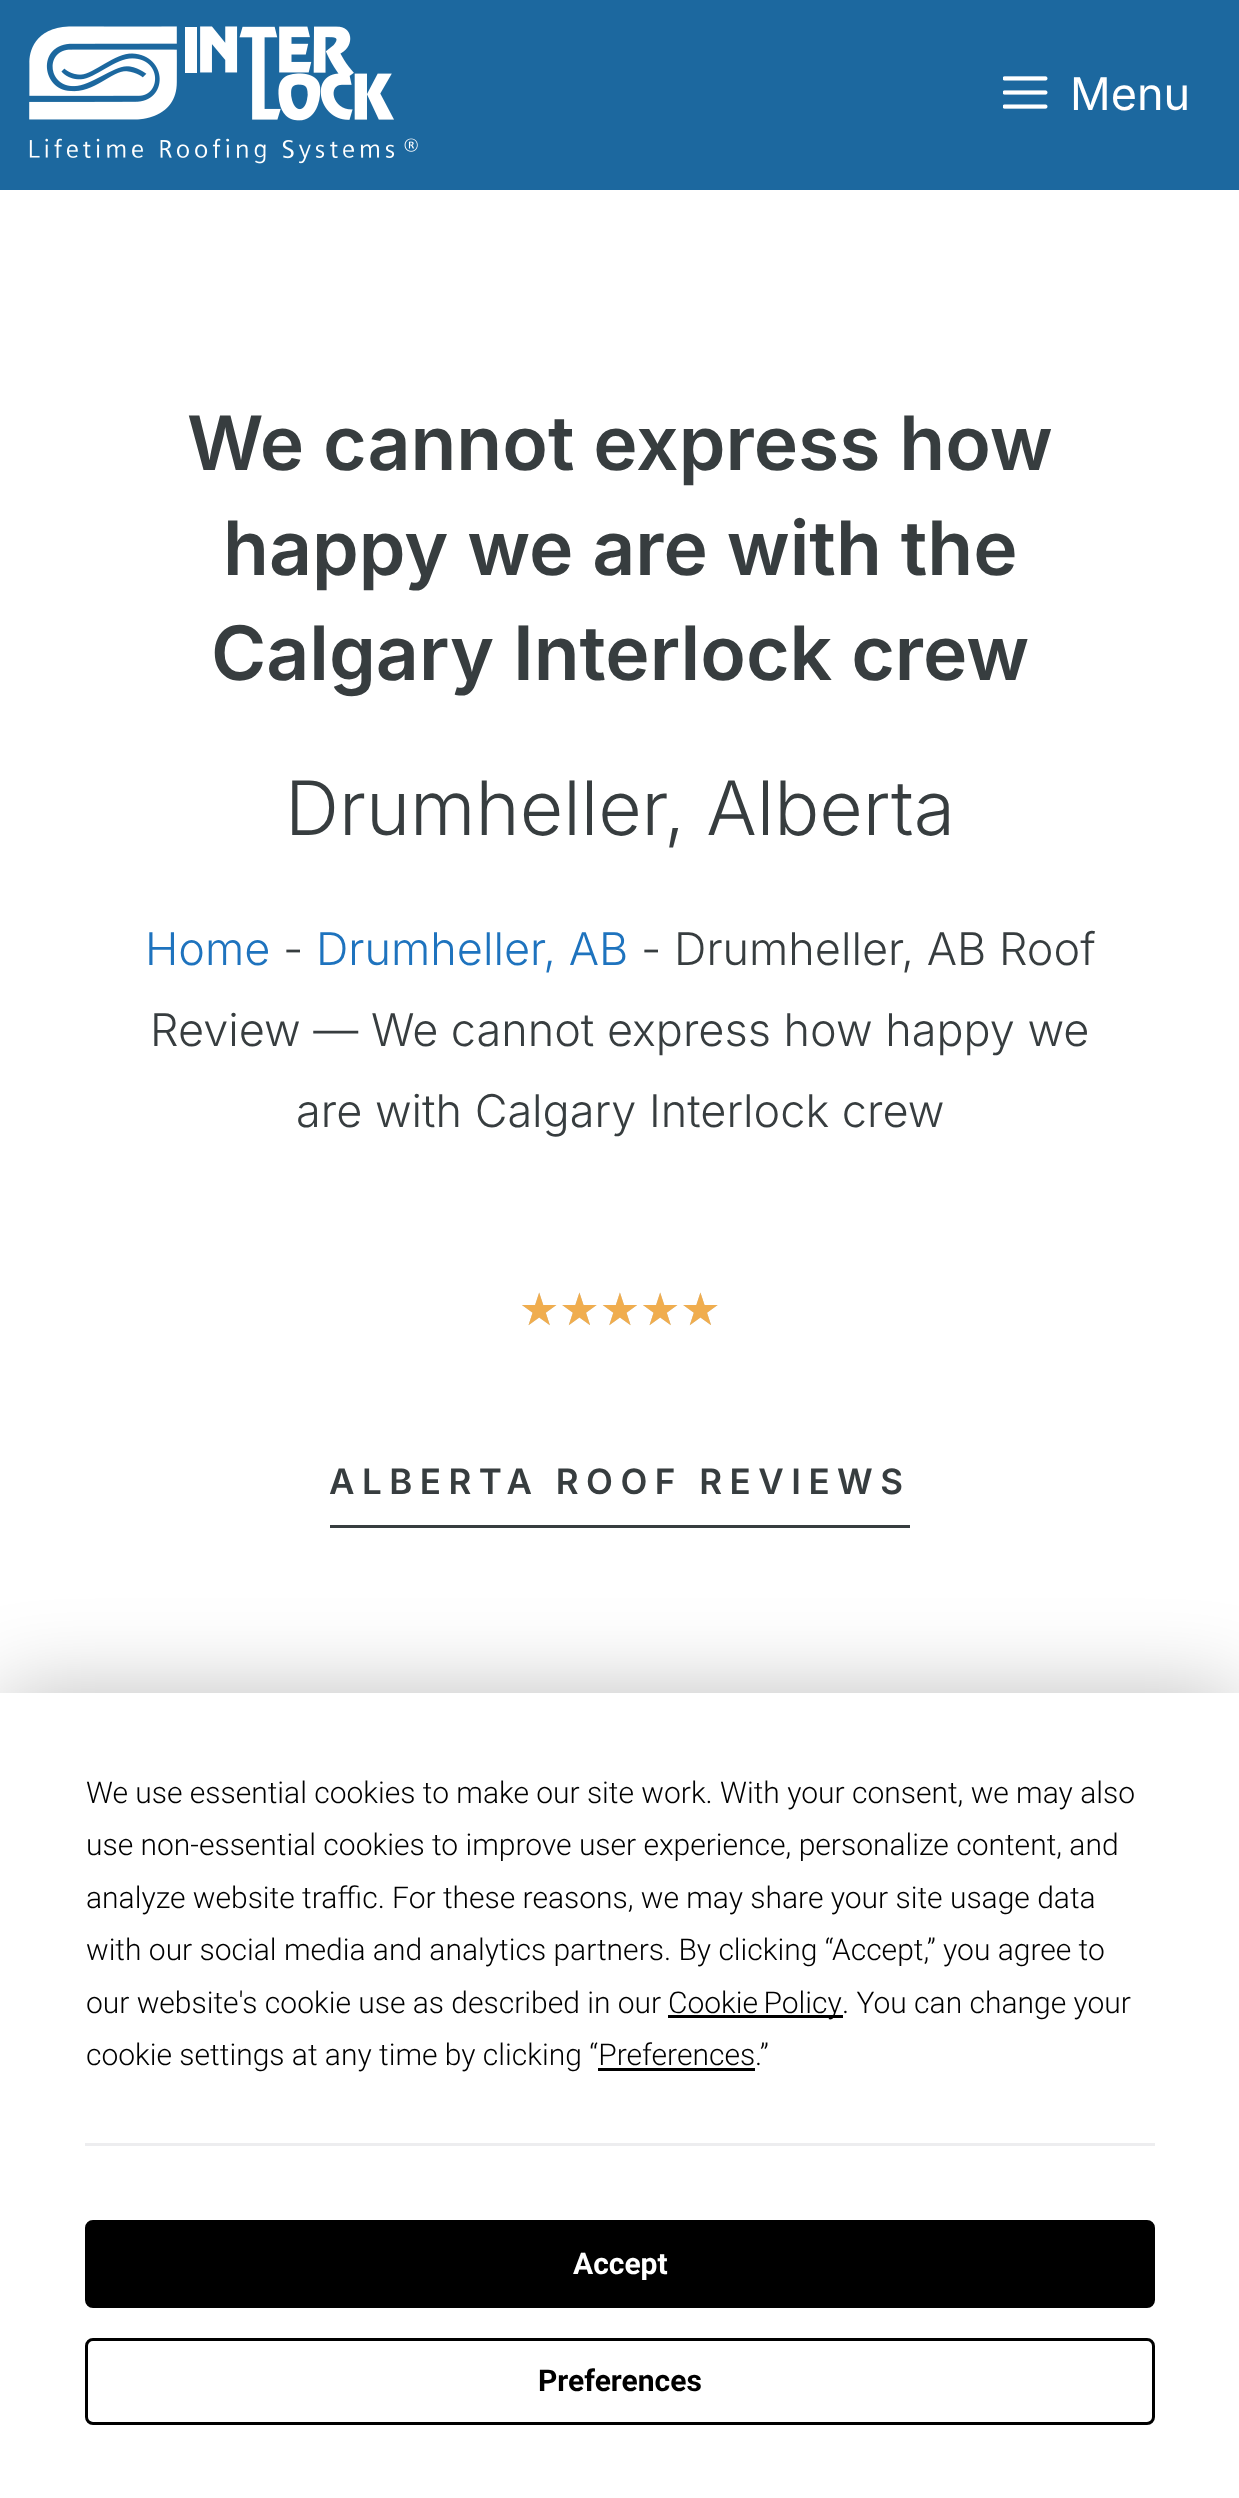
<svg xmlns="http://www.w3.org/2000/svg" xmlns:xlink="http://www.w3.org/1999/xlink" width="1239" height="2498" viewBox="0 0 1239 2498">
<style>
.cls-1{font:45px Inter;fill:#ffffff}
.cls-2{font:600 75px Inter;fill:#373d3f}
.cls-3{font:300 75px Inter;fill:#373d3f}
.cls-4{font:300 45px Inter;fill:#1e73be}
.cls-5{font:300 45px Inter;fill:#373d3f}
.cls-6{font:45px DejaVu Sans;fill:#ccd6df}
.cls-7{font:45px DejaVu Sans;fill:#f0ad4e}
.cls-8{font:600 35px Inter;letter-spacing:7.5px;fill:#373d3f}
.cls-9{font:300 30px Roboto;fill:#000000}
.cls-10{font:bold 30px Roboto;fill:#ffffff}
.cls-11{font:bold 30px Roboto;fill:#000000}
</style>
<rect width="100%" height="100%" fill="#1c689f"/>
<image xlink:href="image0.png" x="29" y="26" width="389" height="138"/>
<image xlink:href="image1.png" x="1003" y="76" width="45" height="33"/>
<rect fill="#ffffff" x="0" y="190" width="1239" height="1503"/>
<rect fill="#373d3f" x="330" y="1525" width="580" height="3"/>
<rect fill="#000000" fill-opacity="0.25" filter="blur(44px)" x="0" y="1693" width="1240" height="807"/>
<rect fill="#ffffff" x="0" y="1693" width="1239" height="805"/>
<rect fill="#000000" x="668" y="2015" width="175" height="3"/>
<rect fill="#000000" x="598" y="2068" width="157" height="3"/>
<rect fill="#ededef" x="85" y="2143" width="1070" height="3"/>
<rect fill="#000000" stroke="#000000" stroke-width="3" x="86.5" y="2221.5" width="1067" height="85" rx="6.5"/>
<rect fill="none" stroke="#000000" stroke-width="3" x="86.5" y="2339.5" width="1067" height="84" rx="6.5"/>
<text class="cls-1" x="1070" y="110">Menu</text>
<text class="cls-2" x="187" y="470">We cannot express how</text>
<text class="cls-2" x="223" y="575">happy we are with the</text>
<text class="cls-2" x="211" y="680">Calgary Interlock crew</text>
<text class="cls-3" x="285" y="835">Drumheller, Alberta</text>
<text class="cls-4" x="145" y="965">Home</text>
<text class="cls-5" x="283" y="965">-</text>
<text class="cls-4" x="316" y="965">Drumheller, AB</text>
<text class="cls-5" x="641" y="965">- Drumheller, AB Roof</text>
<text class="cls-5" x="150" y="1046">Review — We cannot express how happy we</text>
<text class="cls-5" x="296" y="1127">are with Calgary Interlock crew</text>
<text class="cls-6" x="519" y="1325">★★★★★</text>
<text class="cls-7" x="519" y="1325">★★★★★</text>
<text class="cls-8" x="329" y="1494">ALBERTA ROOF REVIEWS</text>
<text class="cls-9"><tspan x="86" y="1803">We use essential cookies to make our site work. With your consent, we may also</tspan><tspan x="86" y="1855">use non-essential cookies to improve user experience, personalize content, and</tspan><tspan x="86" y="1908">analyze website traffic. For these reasons, we may share your site usage data</tspan><tspan x="86" y="1960">with our social media and analytics partners. By clicking “Accept,” you agree to</tspan><tspan x="86" y="2013">our website's cookie use as described in our</tspan></text>
<text class="cls-9" x="668" y="2013" word-spacing="-2">Cookie Policy</text>
<text class="cls-9" x="842" y="2013">. You can change your</text>
<text class="cls-9" x="86" y="2065">cookie settings at any time by clicking “Preferences.”</text>
<text class="cls-10" x="573" y="2274">Accept</text>
<text class="cls-11" x="538" y="2391">Preferences</text>
</svg>
